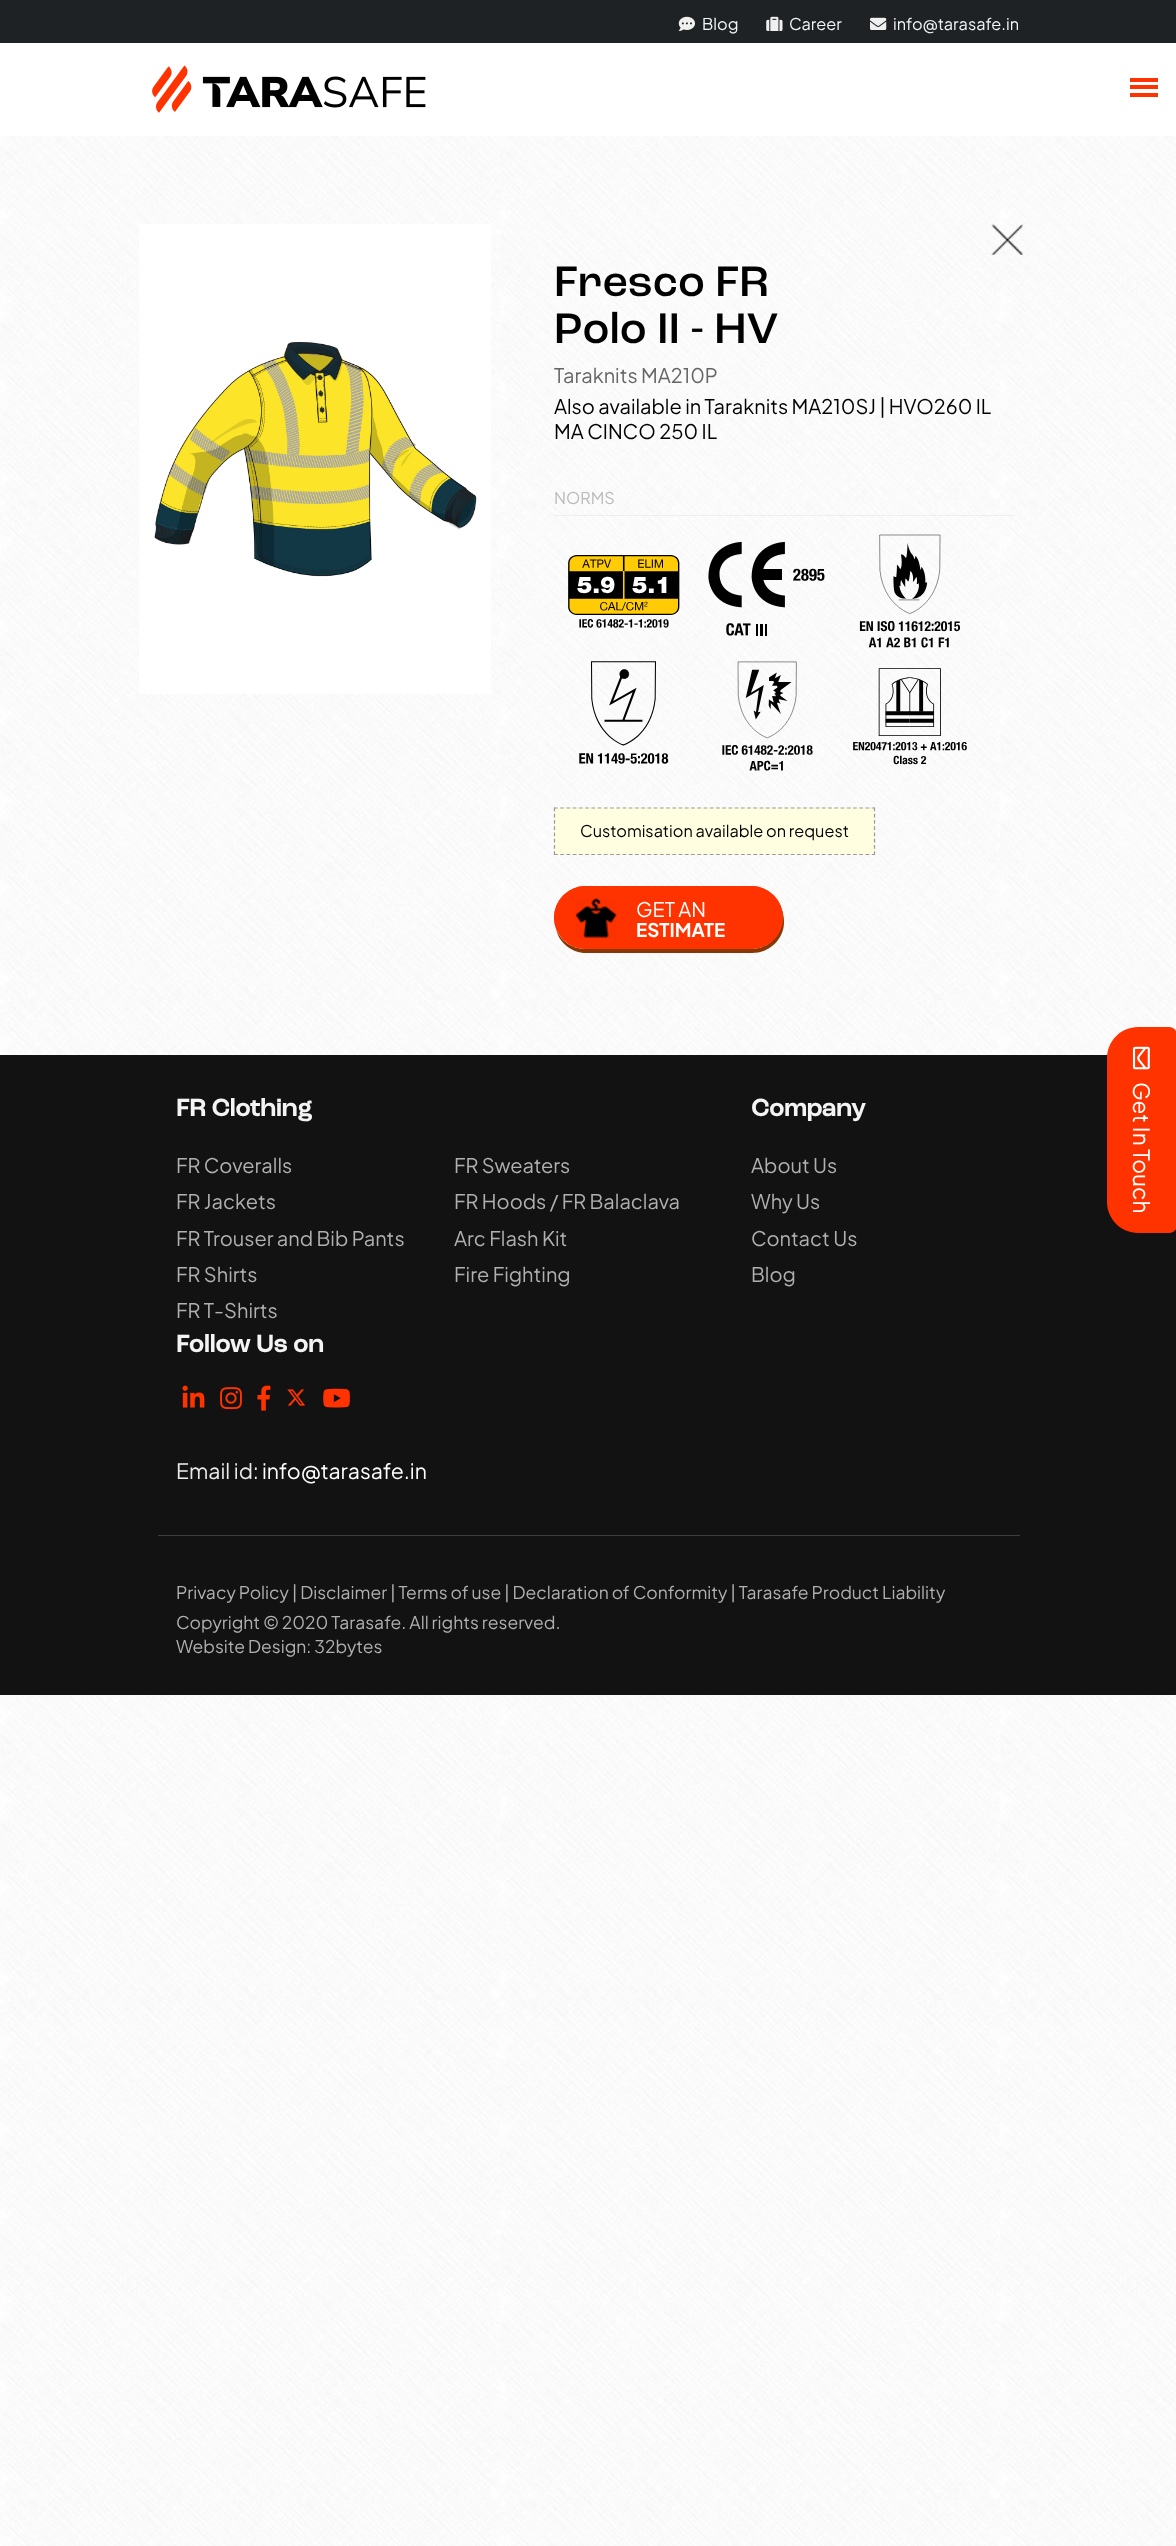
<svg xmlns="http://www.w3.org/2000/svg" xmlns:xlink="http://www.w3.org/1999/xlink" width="1176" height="2546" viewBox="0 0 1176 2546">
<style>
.cls-1{font:16.25px Plus Jakarta Sans;fill:#f4f4f4}
.cls-2{font:500 45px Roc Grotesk;fill:#000000}
.cls-3{font:20px Plus Jakarta Sans;fill:#666666}
.cls-4{font:20px Plus Jakarta Sans;fill:#000000}
.cls-5{font:16.25px Plus Jakarta Sans;fill:#bbbbbb}
.cls-6{font:16.25px Plus Jakarta Sans;fill:#000000}
.cls-7{font:20px Plus Jakarta Sans;fill:#ffffff}
.cls-8{font:bold 18.75px Plus Jakarta Sans;fill:#ffffff}
.cls-9{font:bold 25px Roc Grotesk;fill:#f4f4f4}
.cls-10{font:20px Plus Jakarta Sans;fill:#b0b0b0}
.cls-11{font:21.25px Plus Jakarta Sans;fill:#eaeaea}
.cls-12{font:21.25px Plus Jakarta Sans;fill:#ffffff}
.cls-13{font:17.5px Plus Jakarta Sans;fill:#b0b0b0}
.cls-14{font:22.5px Plus Jakarta Sans;fill:#ffffff}
</style>
<rect width="100%" height="100%" fill="#ffffff"/>
<image xlink:href="image0.png" x="0" y="136" width="1176" height="2410"/>
<rect fill="#1e2225" x="0" y="0" width="1176" height="43"/>
<image xlink:href="image1.png" x="678" y="16" width="17" height="15"/>
<image xlink:href="image2.png" x="766" y="16" width="17" height="15"/>
<image xlink:href="image3.png" x="870" y="17" width="17" height="13"/>
<image xlink:href="image4.png" x="152" y="65" width="274" height="48"/>
<rect fill="#ff3300" x="1130" y="78" width="28" height="4"/>
<rect fill="#ff3300" x="1130" y="85" width="28" height="4"/>
<rect fill="#ff3300" x="1130" y="93" width="28" height="4"/>
<image xlink:href="image5.png" x="139" y="224" width="352" height="470"/>
<image xlink:href="image6.png" x="991" y="223" width="32" height="32"/>
<rect fill="#eeeeee" x="554" y="515" width="460" height="1"/>
<image xlink:href="image7.png" x="568" y="555" width="112" height="73"/>
<image xlink:href="image8.png" x="708" y="541" width="117" height="95"/>
<image xlink:href="image9.png" x="859" y="534" width="101" height="114"/>
<image xlink:href="image10.png" x="579" y="661" width="90" height="103"/>
<image xlink:href="image11.png" x="722" y="661" width="91" height="110"/>
<image xlink:href="image12.png" x="853" y="668" width="114" height="97"/>
<rect fill="#fffee1" x="554" y="808" width="321" height="47"/>
<path fill="none" stroke="#999999" stroke-width="1.2" stroke-dasharray="3.75 2.48" d="M554 808H875"/>
<path fill="none" stroke="#999999" stroke-width="1.2" stroke-dasharray="3.75 2.5" d="M874.5 807.5V855"/>
<path fill="none" stroke="#999999" stroke-width="1.2" stroke-dasharray="3.75 2.48" d="M554 854.5H875"/>
<path fill="none" stroke="#999999" stroke-width="1.2" stroke-dasharray="3.75 2.5" d="M554.5 807.5V855"/>
<path fill="#863905" d="M556 929C559 943 572 953 586 953H752C770 953 784 939 784 922C784 917 783 912 781 908C782 911 782 914 782 918C782 935 769 949 751 949H585C572 949 560 940 556 929Z"/>
<rect fill="#ff3300" x="554" y="886" width="229" height="63" rx="31.5"/>
<image xlink:href="image13.png" x="575" y="898" width="42" height="41"/>
<rect fill="none" stroke="#ff3300" x="554.5" y="886.5" width="228" height="62" rx="31"/>
<rect fill="#121212" x="0" y="1055" width="1176" height="640"/>
<image xlink:href="image14.png" x="182" y="1385" width="23" height="23"/>
<image xlink:href="image15.png" x="220" y="1387" width="22" height="23"/>
<image xlink:href="image16.png" x="257" y="1385" width="14" height="26"/>
<image xlink:href="image17.png" x="287" y="1389" width="19" height="17"/>
<image xlink:href="image18.png" x="323" y="1388" width="27" height="20"/>
<rect fill="#3e3e3e" x="158" y="1535" width="862" height="1"/>
<path fill="#ff3300" d="M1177 1034V1226C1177 1230 1173 1233 1169 1233H1138C1121 1233 1107 1219 1107 1202V1058C1107 1041 1121 1027 1138 1027H1169C1173 1027 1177 1030 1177 1034Z"/>
<image xlink:href="image19.png" x="1132" y="1046" width="18" height="24"/>
<text class="cls-1" x="702" y="30">Blog</text>
<text class="cls-1" x="789" y="30">Career</text>
<text class="cls-1" x="893" y="30">info@tarasafe.in</text>
<text class="cls-2"><tspan x="554" y="296">Fresco FR</tspan><tspan x="554" y="343">Polo II - HV</tspan></text>
<text class="cls-3" x="554" y="383">Taraknits MA210P</text>
<text class="cls-4"><tspan x="554" y="414">Also available in Taraknits MA210SJ | HVO260 IL</tspan><tspan x="554" y="439">MA CINCO 250 IL</tspan></text>
<text class="cls-5" x="554" y="504">NORMS</text>
<text class="cls-6" x="580" y="837">Customisation available on request</text>
<text class="cls-7" x="636" y="917">GET AN</text>
<text class="cls-8" x="636" y="937">ESTIMATE</text>
<text class="cls-9" x="176" y="1116">FR Clothing</text>
<text class="cls-10" x="176" y="1173">FR Coveralls</text>
<text class="cls-10" x="454" y="1173">FR Sweaters</text>
<text class="cls-10" x="176" y="1209">FR Jackets</text>
<text class="cls-10" x="454" y="1209">FR Hoods / FR Balaclava</text>
<text class="cls-10" x="176" y="1246">FR Trouser and Bib Pants</text>
<text class="cls-10" x="454" y="1246">Arc Flash Kit</text>
<text class="cls-10" x="176" y="1282">FR Shirts</text>
<text class="cls-10" x="454" y="1282">Fire Fighting</text>
<text class="cls-10" x="176" y="1318">FR T-Shirts</text>
<text class="cls-9" x="751" y="1116">Company</text>
<text class="cls-10"><tspan x="751" y="1173">About Us</tspan><tspan x="751" y="1209">Why Us</tspan><tspan x="751" y="1246">Contact Us</tspan><tspan x="751" y="1282">Blog</tspan></text>
<text class="cls-9" x="176" y="1352">Follow Us on</text>
<text class="cls-11" x="176" y="1479">Email id:</text>
<text class="cls-12" x="262" y="1479">info@tarasafe.in</text>
<text class="cls-13"><tspan x="176" y="1599">Privacy Policy | Disclaimer | Terms of use | Declaration of Conformity | Tarasafe Product Liability</tspan><tspan x="176" y="1629">Copyright © 2020 Tarasafe. All rights reserved.</tspan><tspan x="176" y="1653">Website Design: 32bytes</tspan></text>
<text class="cls-14" x="1133" y="1082" transform="rotate(90 1133 1082)">Get In Touch</text>
</svg>
